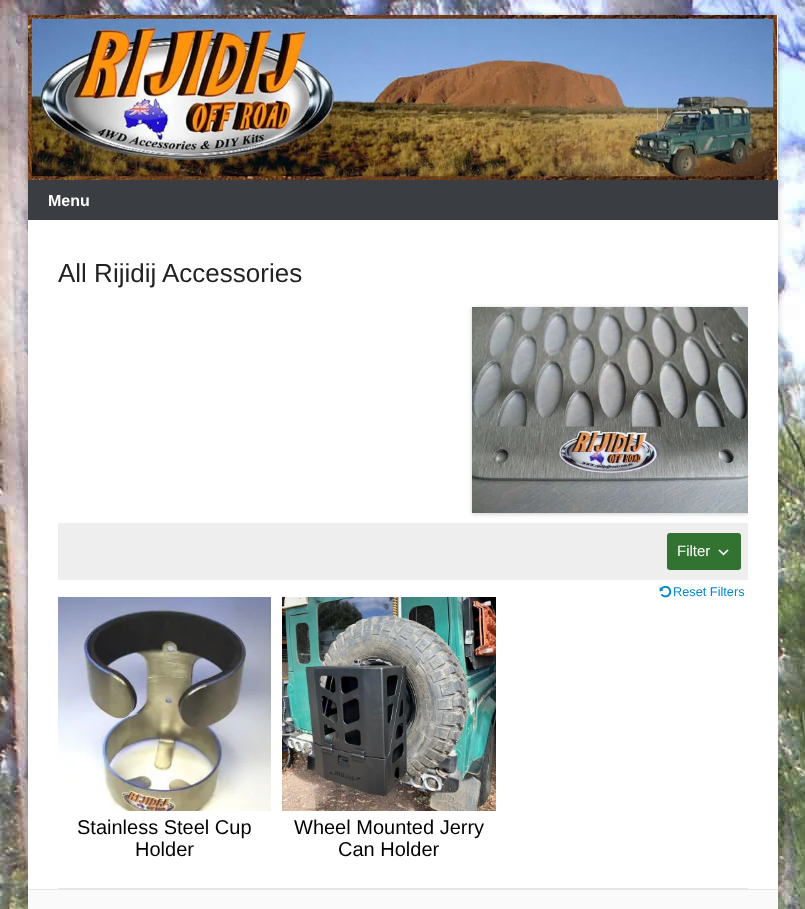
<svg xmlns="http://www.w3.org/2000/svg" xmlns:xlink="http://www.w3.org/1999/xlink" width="805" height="909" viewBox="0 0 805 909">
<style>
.cls-1{font:bold 16px Liberation Sans;fill:#ffffff}
.cls-2{font:26px Liberation Sans;fill:#222222}
.cls-3{font:15px Liberation Sans;fill:#ffffff}
.cls-4{font:12.75px Liberation Sans;fill:#0088cc}
.cls-5{font:20px Liberation Sans;fill:#000000}
</style>
<defs>
<clipPath id="clip1"><rect x="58" y="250" width="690" height="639"/></clipPath>
</defs>
<rect width="100%" height="100%" fill="#ffffff"/>
<image xlink:href="image0.png" x="0" y="0" width="805" height="909"/>
<rect fill="#646464" fill-opacity="0.3" filter="blur(3px)" x="28" y="17" width="750" height="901"/>
<rect fill="#ffffff" x="28" y="15" width="750" height="874"/>
<rect fill="#000000" fill-opacity="0.2" filter="blur(2px)" x="28" y="16" width="749" height="165"/>
<image xlink:href="image1.png" x="28" y="15" width="749" height="165"/>
<rect fill="#3a3d41" x="28" y="180" width="750" height="40"/>
<rect fill="#e6e6e6" x="58" y="888" width="690" height="1"/>
<g clip-path="url(#clip1)">
<rect fill="#000000" fill-opacity="0.2" filter="blur(2px)" x="472" y="308" width="276" height="206"/>
</g>
<image xlink:href="image2.png" x="472" y="307" width="276" height="206"/>
<rect fill="#eeeeee" x="58" y="523" width="690" height="57"/>
<rect fill="#327332" x="667" y="533" width="74" height="37" rx="3"/>
<image xlink:href="image3.png" x="718" y="549" width="11" height="7"/>
<image xlink:href="image4.png" x="659" y="585" width="13" height="13"/>
<image xlink:href="image5.png" x="58" y="597" width="213" height="214"/>
<image xlink:href="image6.png" x="282" y="597" width="214" height="214"/>
<rect fill="#fafafa" x="28" y="890" width="750" height="19"/>
<rect fill="#e6e6e6" x="28" y="889" width="750" height="1"/>
<text class="cls-1" x="48" y="206">Menu</text>
<text class="cls-2" x="58" y="282">All Rijidij Accessories</text>
<text class="cls-3" x="677" y="556">Filter</text>
<text class="cls-4" x="673" y="596">Reset Filters</text>
<text class="cls-5" x="77" y="834">Stainless Steel Cup</text>
<text class="cls-5" x="135" y="856">Holder</text>
<text class="cls-5" x="294" y="834">Wheel Mounted Jerry</text>
<text class="cls-5" x="338" y="856">Can Holder</text>
</svg>
